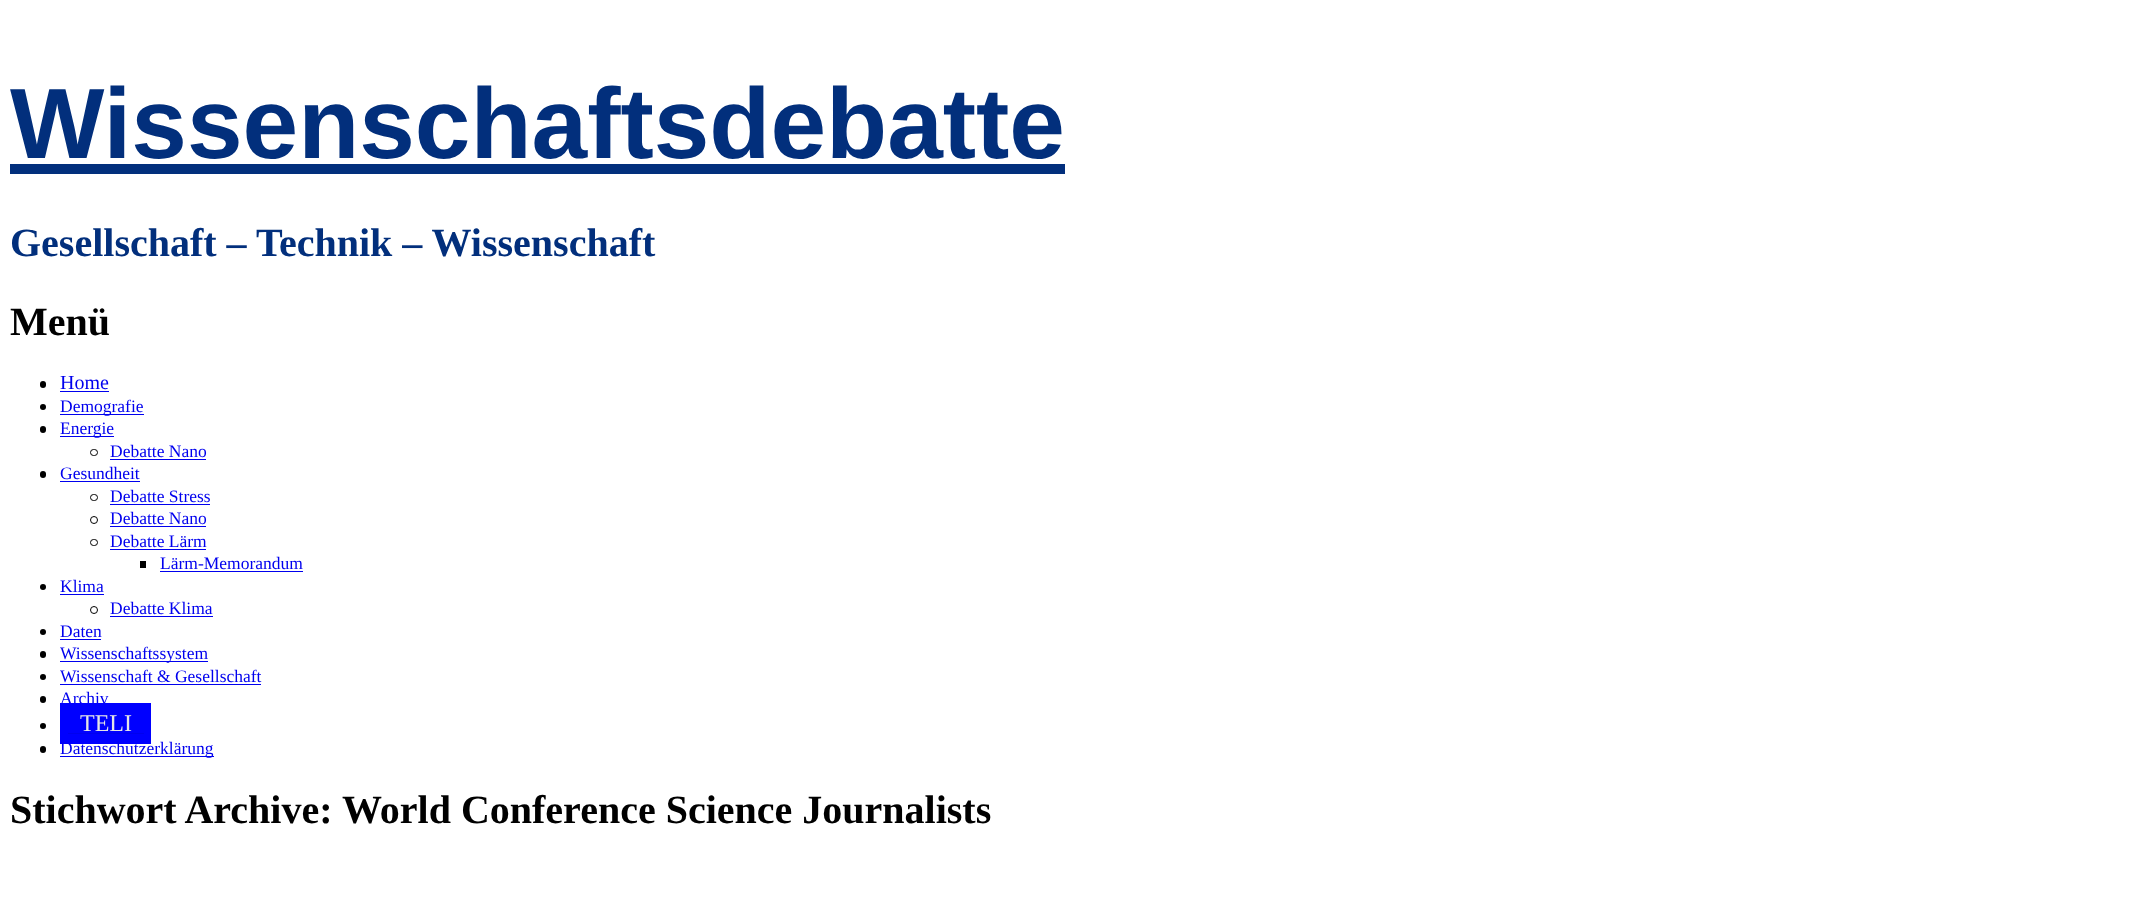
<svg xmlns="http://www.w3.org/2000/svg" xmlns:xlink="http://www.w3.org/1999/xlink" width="2156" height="901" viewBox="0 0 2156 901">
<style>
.cls-1{font:bold 100px Liberation Sans;fill:#022f7c}
.cls-2{font:bold 40px Liberation Serif;fill:#022f7c}
.cls-3{font:bold 40px Liberation Serif;fill:#000000}
.cls-4{font:20px Liberation Serif;fill:#0000ee}
.cls-5{font:17.5px Liberation Serif;fill:#0000ee}
.cls-6{font:24px Liberation Serif;fill:#e6e6e6}
</style>
<rect width="100%" height="100%" fill="#ffffff"/>
<rect fill="#022f7c" x="10" y="164" width="1055" height="10"/>
<rect fill="#000000" x="40" y="381" width="6" height="7" rx="3"/>
<rect fill="#0000ee" x="60" y="391" width="49" height="1"/>
<circle fill="#000000" cx="43" cy="407" r="3"/>
<rect fill="#0000ee" x="60" y="414" width="84" height="1"/>
<rect fill="#000000" x="40" y="426" width="6" height="7" rx="3"/>
<rect fill="#0000ee" x="60" y="436" width="54" height="1"/>
<rect fill="none" stroke="#000000" x="90.5" y="449.5" width="7" height="6" rx="3"/>
<rect fill="#0000ee" x="110" y="459" width="96" height="1"/>
<rect fill="#000000" x="40" y="471" width="6" height="7" rx="3"/>
<rect fill="#0000ee" x="60" y="481" width="80" height="1"/>
<rect fill="none" stroke="#000000" x="90.5" y="494.5" width="7" height="6" rx="3"/>
<rect fill="#0000ee" x="110" y="504" width="100" height="1"/>
<circle fill="none" stroke="#000000" cx="94" cy="520" r="3.5"/>
<rect fill="#0000ee" x="110" y="526" width="96" height="1"/>
<rect fill="none" stroke="#000000" x="90.5" y="539.5" width="7" height="6" rx="3"/>
<rect fill="#0000ee" x="110" y="549" width="96" height="1"/>
<rect fill="#000000" x="140" y="561" width="6" height="7"/>
<rect fill="#0000ee" x="160" y="571" width="143" height="1"/>
<circle fill="#000000" cx="43" cy="587" r="3"/>
<rect fill="#0000ee" x="60" y="594" width="44" height="1"/>
<circle fill="none" stroke="#000000" cx="94" cy="610" r="3.5"/>
<rect fill="#0000ee" x="110" y="616" width="103" height="1"/>
<circle fill="#000000" cx="43" cy="632" r="3"/>
<rect fill="#0000ee" x="60" y="639" width="41" height="1"/>
<rect fill="#000000" x="40" y="651" width="6" height="7" rx="3"/>
<rect fill="#0000ee" x="60" y="661" width="148" height="1"/>
<circle fill="#000000" cx="43" cy="677" r="3"/>
<rect fill="#0000ee" x="60" y="684" width="201" height="1"/>
<rect fill="#000000" x="40" y="696" width="6" height="7" rx="3"/>
<circle fill="#000000" cx="43" cy="726" r="3"/>
<rect fill="#000000" x="40" y="746" width="6" height="7" rx="3"/>
<rect fill="#0000ee" x="60" y="756" width="154" height="1"/>
<text class="cls-1" x="10" y="158">Wissenschaftsdebatte</text>
<text class="cls-2" x="10" y="256">Gesellschaft – Technik – Wissenschaft</text>
<text class="cls-3" x="10" y="335">Menü</text>
<text class="cls-4" x="60" y="389">Home</text>
<text class="cls-5"><tspan x="60" y="412">Demografie</tspan><tspan x="60" y="434">Energie</tspan></text>
<text class="cls-5" x="110" y="457">Debatte Nano</text>
<text class="cls-5" x="60" y="479">Gesundheit</text>
<text class="cls-5"><tspan x="110" y="502">Debatte Stress</tspan><tspan x="110" y="524">Debatte Nano</tspan><tspan x="110" y="547">Debatte Lärm</tspan></text>
<text class="cls-5" x="160" y="569">Lärm-Memorandum</text>
<text class="cls-5" x="60" y="592">Klima</text>
<text class="cls-5" x="110" y="614">Debatte Klima</text>
<text class="cls-5"><tspan x="60" y="637">Daten</tspan><tspan x="60" y="659">Wissenschaftssystem</tspan><tspan x="60" y="682">Wissenschaft &amp; Gesellschaft</tspan><tspan x="60" y="704">Archiv</tspan></text>
<rect fill="#0000ff" x="60" y="703" width="91" height="41"/>
<text class="cls-6" x="80" y="731">TELI</text>
<rect fill="#0000ee" x="68" y="733" width="76" height="1"/>
<text class="cls-5" x="60" y="754">Datenschutzerklärung</text>
<text class="cls-3" x="10" y="823">Stichwort Archive:</text>
<text class="cls-3" x="342" y="823">World Conference Science Journalists</text>
</svg>
